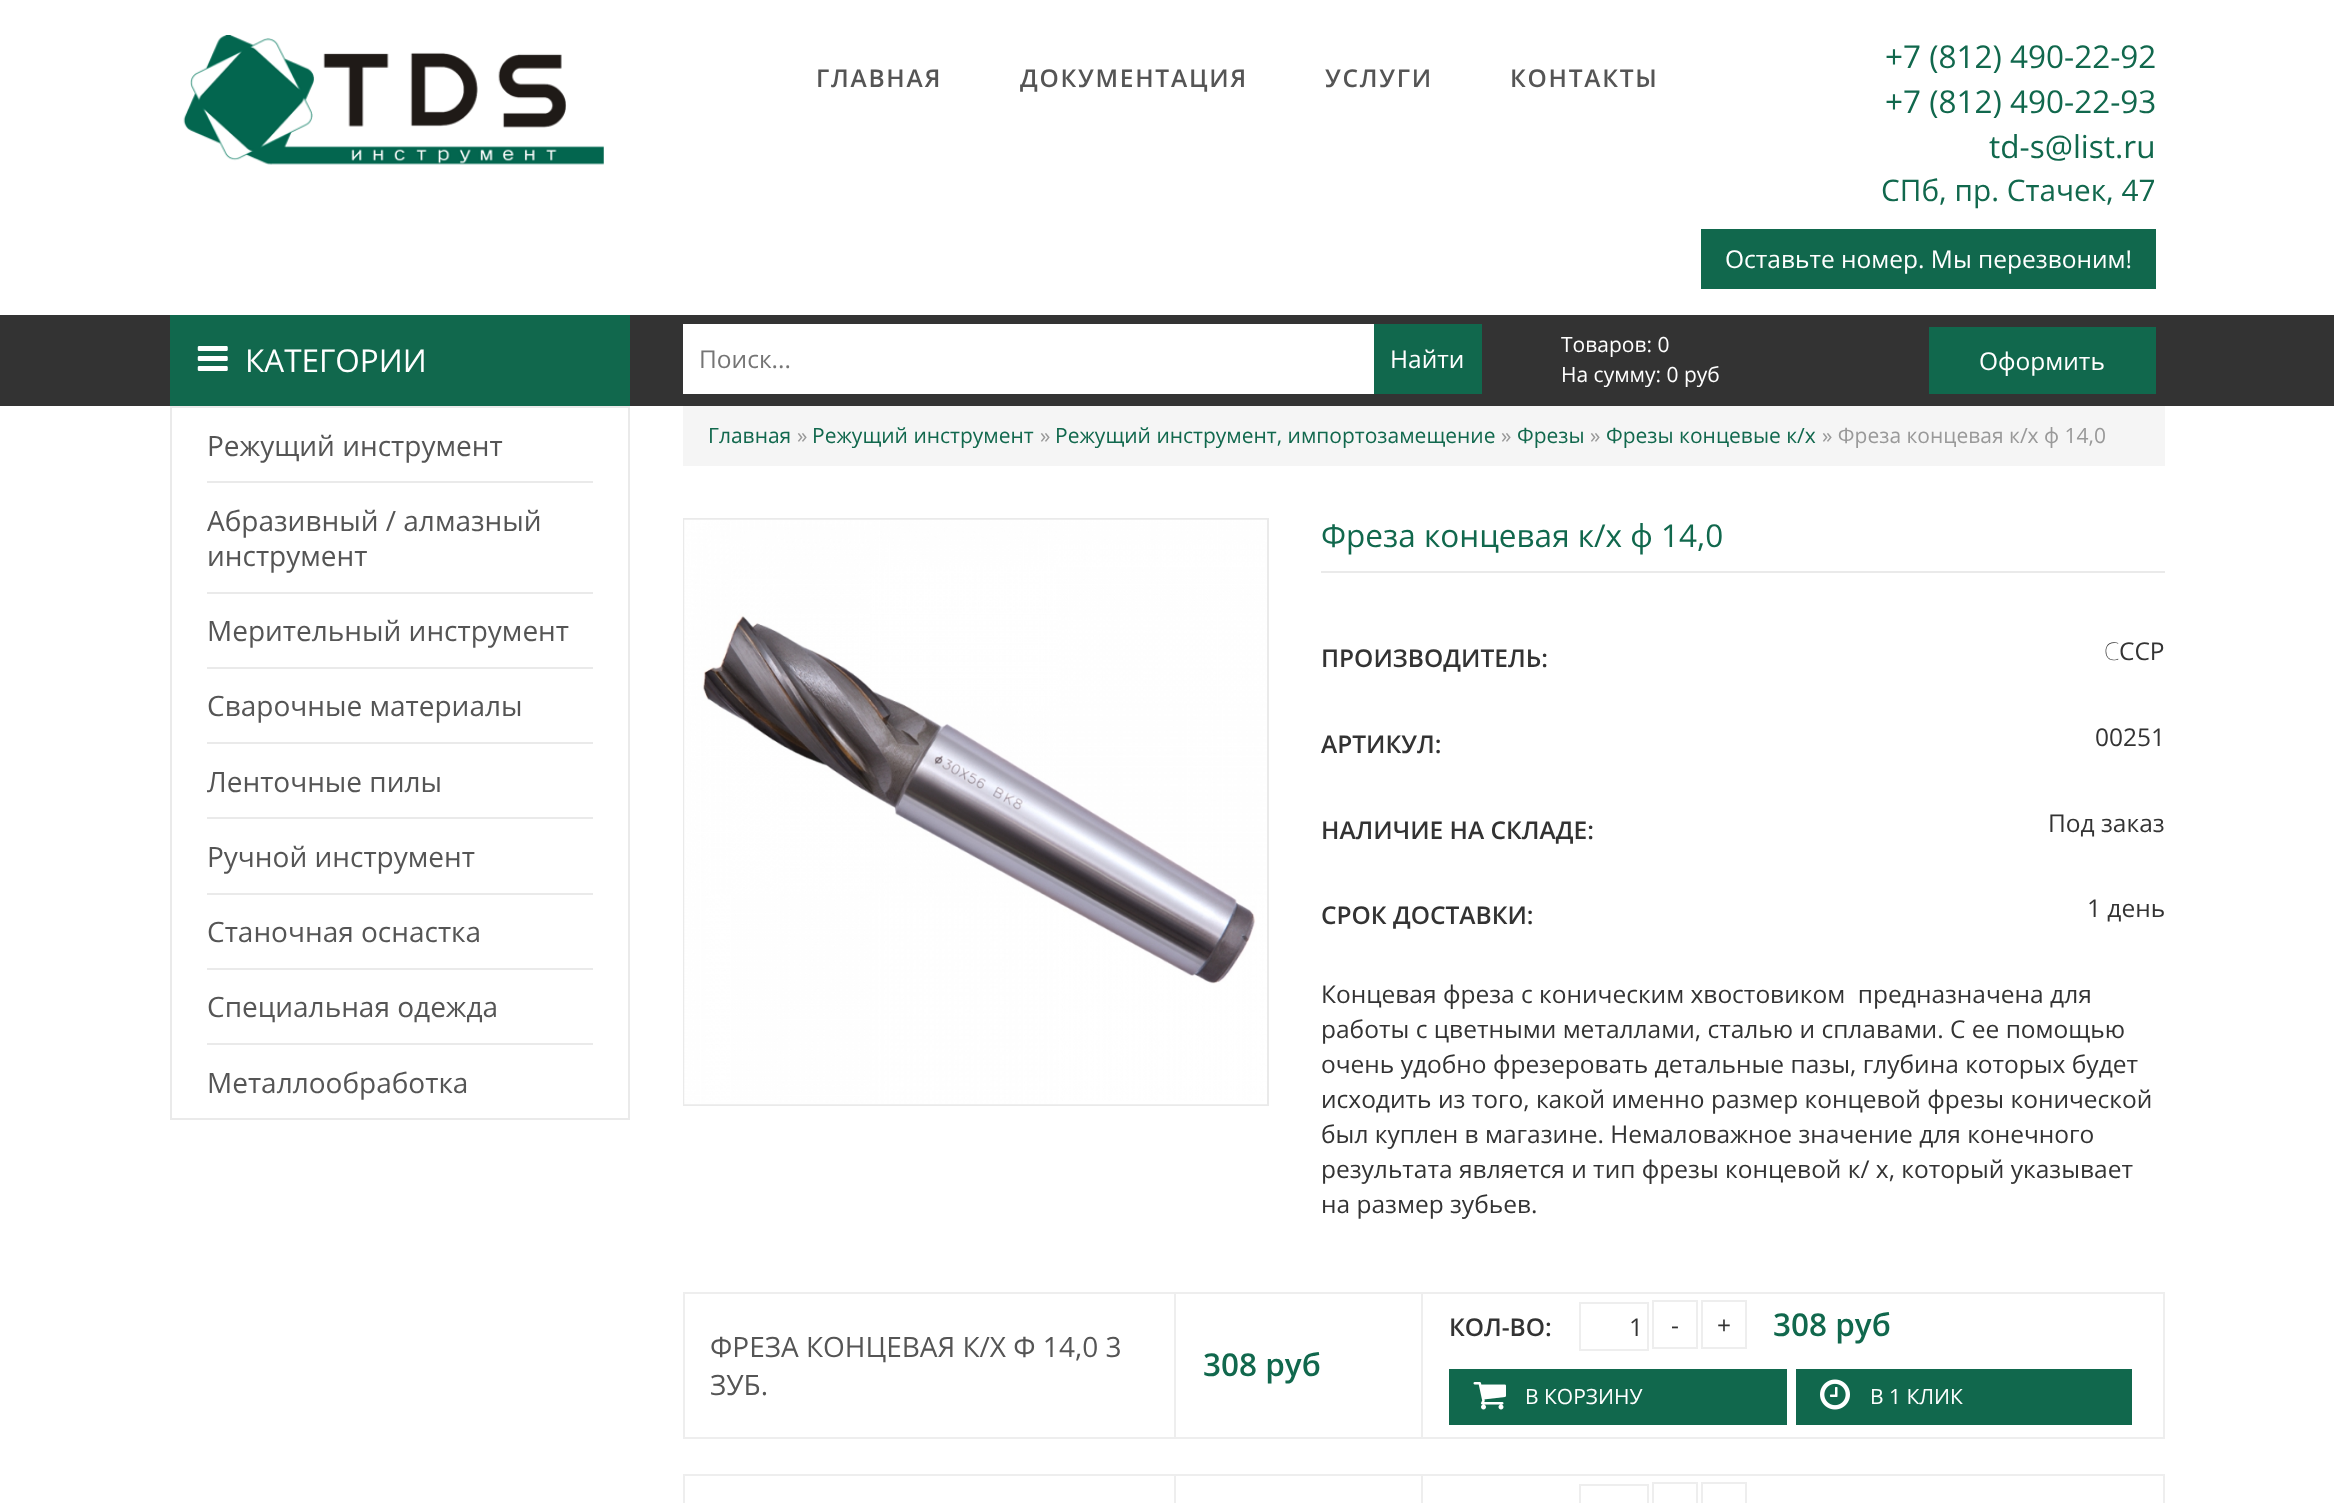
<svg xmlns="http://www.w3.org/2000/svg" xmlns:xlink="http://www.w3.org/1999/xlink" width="2334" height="1503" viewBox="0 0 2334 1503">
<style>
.cls-1{font:600 24.5px Open Sans;letter-spacing:1.75px;fill:#555555}
.cls-2{font:31.5px Open Sans;fill:#11684d}
.cls-3{font:29.75px Open Sans;fill:#11684d}
.cls-4{font:24.5px Open Sans;fill:#ffffff}
.cls-5{font:31.5px Open Sans;fill:#ffffff}
.cls-6{font:24.5px Open Sans;fill:#757575}
.cls-7{font:21px Open Sans;fill:#ffffff}
.cls-8{font:28px Open Sans;fill:#555555}
.cls-9{font:21px Open Sans;fill:#11684d}
.cls-10{font:21px Open Sans;fill:#999999}
.cls-11{font:600 24.5px Open Sans;fill:#333333}
.cls-12{font:100 24.5px Noto Sans;fill:#333333}
.cls-13{font:24.5px Open Sans;fill:#333333}
.cls-14{font:600 31.5px Open Sans;fill:#11684d}
</style>
<rect width="100%" height="100%" fill="#ffffff"/>
<image xlink:href="image0.png" x="183" y="35" width="421" height="130"/>
<rect fill="#11684d" x="1701" y="229" width="455" height="60"/>
<rect fill="#333333" x="0" y="315" width="2334" height="91"/>
<rect fill="#11684d" x="170" y="315" width="460" height="91"/>
<image xlink:href="image1.png" x="197" y="346" width="31" height="25"/>
<rect fill="#ffffff" x="683" y="324" width="691" height="70"/>
<rect fill="#11684d" x="1374" y="324" width="108" height="70"/>
<rect fill="#11684d" x="1929" y="327" width="227" height="67"/>
<rect fill="none" stroke="#eaeaea" stroke-width="2" x="171" y="407" width="458" height="712"/>
<rect fill="#eaeaea" x="207" y="481" width="386" height="2"/>
<rect fill="#eaeaea" x="207" y="592" width="386" height="2"/>
<rect fill="#eaeaea" x="207" y="667" width="386" height="2"/>
<rect fill="#eaeaea" x="207" y="742" width="386" height="2"/>
<rect fill="#eaeaea" x="207" y="817" width="386" height="2"/>
<rect fill="#eaeaea" x="207" y="893" width="386" height="2"/>
<rect fill="#eaeaea" x="207" y="968" width="386" height="2"/>
<rect fill="#eaeaea" x="207" y="1043" width="386" height="2"/>
<rect fill="#f5f5f5" x="683" y="406" width="1482" height="60"/>
<rect fill="none" stroke="#eaeaea" stroke-width="2" x="684" y="519" width="584" height="586"/>
<image xlink:href="image2.png" x="684" y="519" width="583" height="586"/>
<rect fill="#eaeaea" x="1321" y="571" width="844" height="2"/>
<rect fill="none" stroke="#eeeeee" stroke-width="2" x="684" y="1293" width="1480" height="145"/>
<rect fill="#eeeeee" x="1174" y="1293" width="2" height="144"/>
<rect fill="#eeeeee" x="1421" y="1293" width="2" height="144"/>
<rect fill="none" stroke="#eeeeee" stroke-width="2" x="1580" y="1303" width="68" height="47"/>
<rect fill="none" stroke="#eeeeee" stroke-width="2" x="1653" y="1301" width="44" height="47"/>
<rect fill="none" stroke="#eeeeee" stroke-width="2" x="1702" y="1301" width="44" height="47"/>
<rect fill="#11684d" x="1449" y="1369" width="338" height="56"/>
<image xlink:href="image3.png" x="1473" y="1382" width="33" height="28"/>
<rect fill="#11684d" x="1796" y="1369" width="336" height="56"/>
<image xlink:href="image4.png" x="1820" y="1379" width="30" height="31"/>
<rect fill="none" stroke="#eeeeee" stroke-width="2" x="684" y="1475" width="1480" height="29"/>
<rect fill="#eeeeee" x="1174" y="1475" width="2" height="28"/>
<rect fill="#eeeeee" x="1421" y="1475" width="2" height="28"/>
<rect fill="none" stroke="#eeeeee" stroke-width="2" x="1580" y="1485" width="68" height="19"/>
<rect fill="none" stroke="#eeeeee" stroke-width="2" x="1653" y="1483" width="44" height="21"/>
<rect fill="none" stroke="#eeeeee" stroke-width="2" x="1702" y="1483" width="44" height="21"/>
<text class="cls-1" x="816" y="87">ГЛАВНАЯ</text>
<text class="cls-1" x="1020" y="87">ДОКУМЕНТАЦИЯ</text>
<text class="cls-1" x="1325" y="87">УСЛУГИ</text>
<text class="cls-1" x="1510" y="87">КОНТАКТЫ</text>
<text class="cls-2"><tspan x="1885" y="68">+7 (812) 490-22-92</tspan><tspan x="1885" y="113">+7 (812) 490-22-93</tspan></text>
<text class="cls-2" x="1989" y="158">td-s@list.ru</text>
<text class="cls-3" x="1881" y="201">СПб, пр. Стачек, 47</text>
<text class="cls-4" x="1725" y="268">Оставьте номер. Мы перезвоним!</text>
<text class="cls-5" x="245" y="372">КАТЕГОРИИ</text>
<text class="cls-6" x="699" y="368">Поиск...</text>
<text class="cls-4" x="1390" y="368">Найти</text>
<text class="cls-7"><tspan x="1561" y="352">Товаров: 0</tspan><tspan x="1561" y="382">На сумму: 0 руб</tspan></text>
<text class="cls-4" x="1979" y="370">Оформить</text>
<text class="cls-8" x="207" y="456">Режущий инструмент</text>
<text class="cls-8"><tspan x="207" y="531">Абразивный / алмазный</tspan><tspan x="207" y="566">инструмент</tspan></text>
<text class="cls-8" x="207" y="641">Мерительный инструмент</text>
<text class="cls-8" x="207" y="716">Сварочные материалы</text>
<text class="cls-8" x="207" y="792">Ленточные пилы</text>
<text class="cls-8" x="207" y="867">Ручной инструмент</text>
<text class="cls-8" x="207" y="942">Станочная оснастка</text>
<text class="cls-8" x="207" y="1017">Специальная одежда</text>
<text class="cls-8" x="207" y="1093">Металлообработка</text>
<text class="cls-9" x="708" y="443">Главная</text>
<text class="cls-10" x="797" y="443">»</text>
<text class="cls-9" x="812" y="443">Режущий инструмент</text>
<text class="cls-10" x="1040" y="443">»</text>
<text class="cls-9" x="1055" y="443">Режущий инструмент, импортозамещение</text>
<text class="cls-10" x="1501" y="443">»</text>
<text class="cls-9" x="1517" y="443">Фрезы</text>
<text class="cls-10" x="1590" y="443">»</text>
<text class="cls-9" x="1606" y="443">Фрезы концевые к/х</text>
<text class="cls-10" x="1822" y="443">» Фреза концевая к/х ф 14,0</text>
<text class="cls-2" x="1321" y="547">Фреза концевая к/х ф 14,0</text>
<text class="cls-11" x="1321" y="667">ПРОИЗВОДИТЕЛЬ:</text>
<text class="cls-12" x="2104" y="660">С</text>
<text class="cls-13" x="2119" y="660">ССР</text>
<text class="cls-11" x="1321" y="753">АРТИКУЛ:</text>
<text class="cls-13" x="2095" y="746">00251</text>
<text class="cls-11" x="1321" y="839">НАЛИЧИЕ НА СКЛАДЕ:</text>
<text class="cls-13" x="2048" y="832">Под заказ</text>
<text class="cls-11" x="1321" y="924">СРОК ДОСТАВКИ:</text>
<text class="cls-13" x="2087" y="917">1 день</text>
<text class="cls-13" xml:space="preserve"><tspan x="1321" y="1003">Концевая фреза с коническим хвостовиком  предназначена для</tspan><tspan x="1321" y="1038">работы с цветными металлами, сталью и сплавами. С ее помощью</tspan><tspan x="1321" y="1073">очень удобно фрезеровать детальные пазы, глубина которых будет</tspan><tspan x="1321" y="1108">исходить из того, какой именно размер концевой фрезы конической</tspan><tspan x="1321" y="1143">был куплен в магазине. Немаловажное значение для конечного</tspan><tspan x="1321" y="1178">результата является и тип фрезы концевой к/ х, который указывает</tspan><tspan x="1321" y="1213">на размер зубьев.</tspan></text>
<text class="cls-8"><tspan x="710" y="1357">ФРЕЗА КОНЦЕВАЯ К/Х Ф 14,0 3</tspan><tspan x="710" y="1395">ЗУБ.</tspan></text>
<text class="cls-14" x="1203" y="1376">308 руб</text>
<text class="cls-11" x="1449" y="1336">КОЛ-ВО:</text>
<text class="cls-13" x="1629" y="1336">1</text>
<text class="cls-13" x="1671" y="1334">-</text>
<text class="cls-13" x="1717" y="1334">+</text>
<text class="cls-14" x="1773" y="1336">308 руб</text>
<text class="cls-7" x="1525" y="1404">В КОРЗИНУ</text>
<text class="cls-7" x="1870" y="1404">В 1 КЛИК</text>
</svg>
